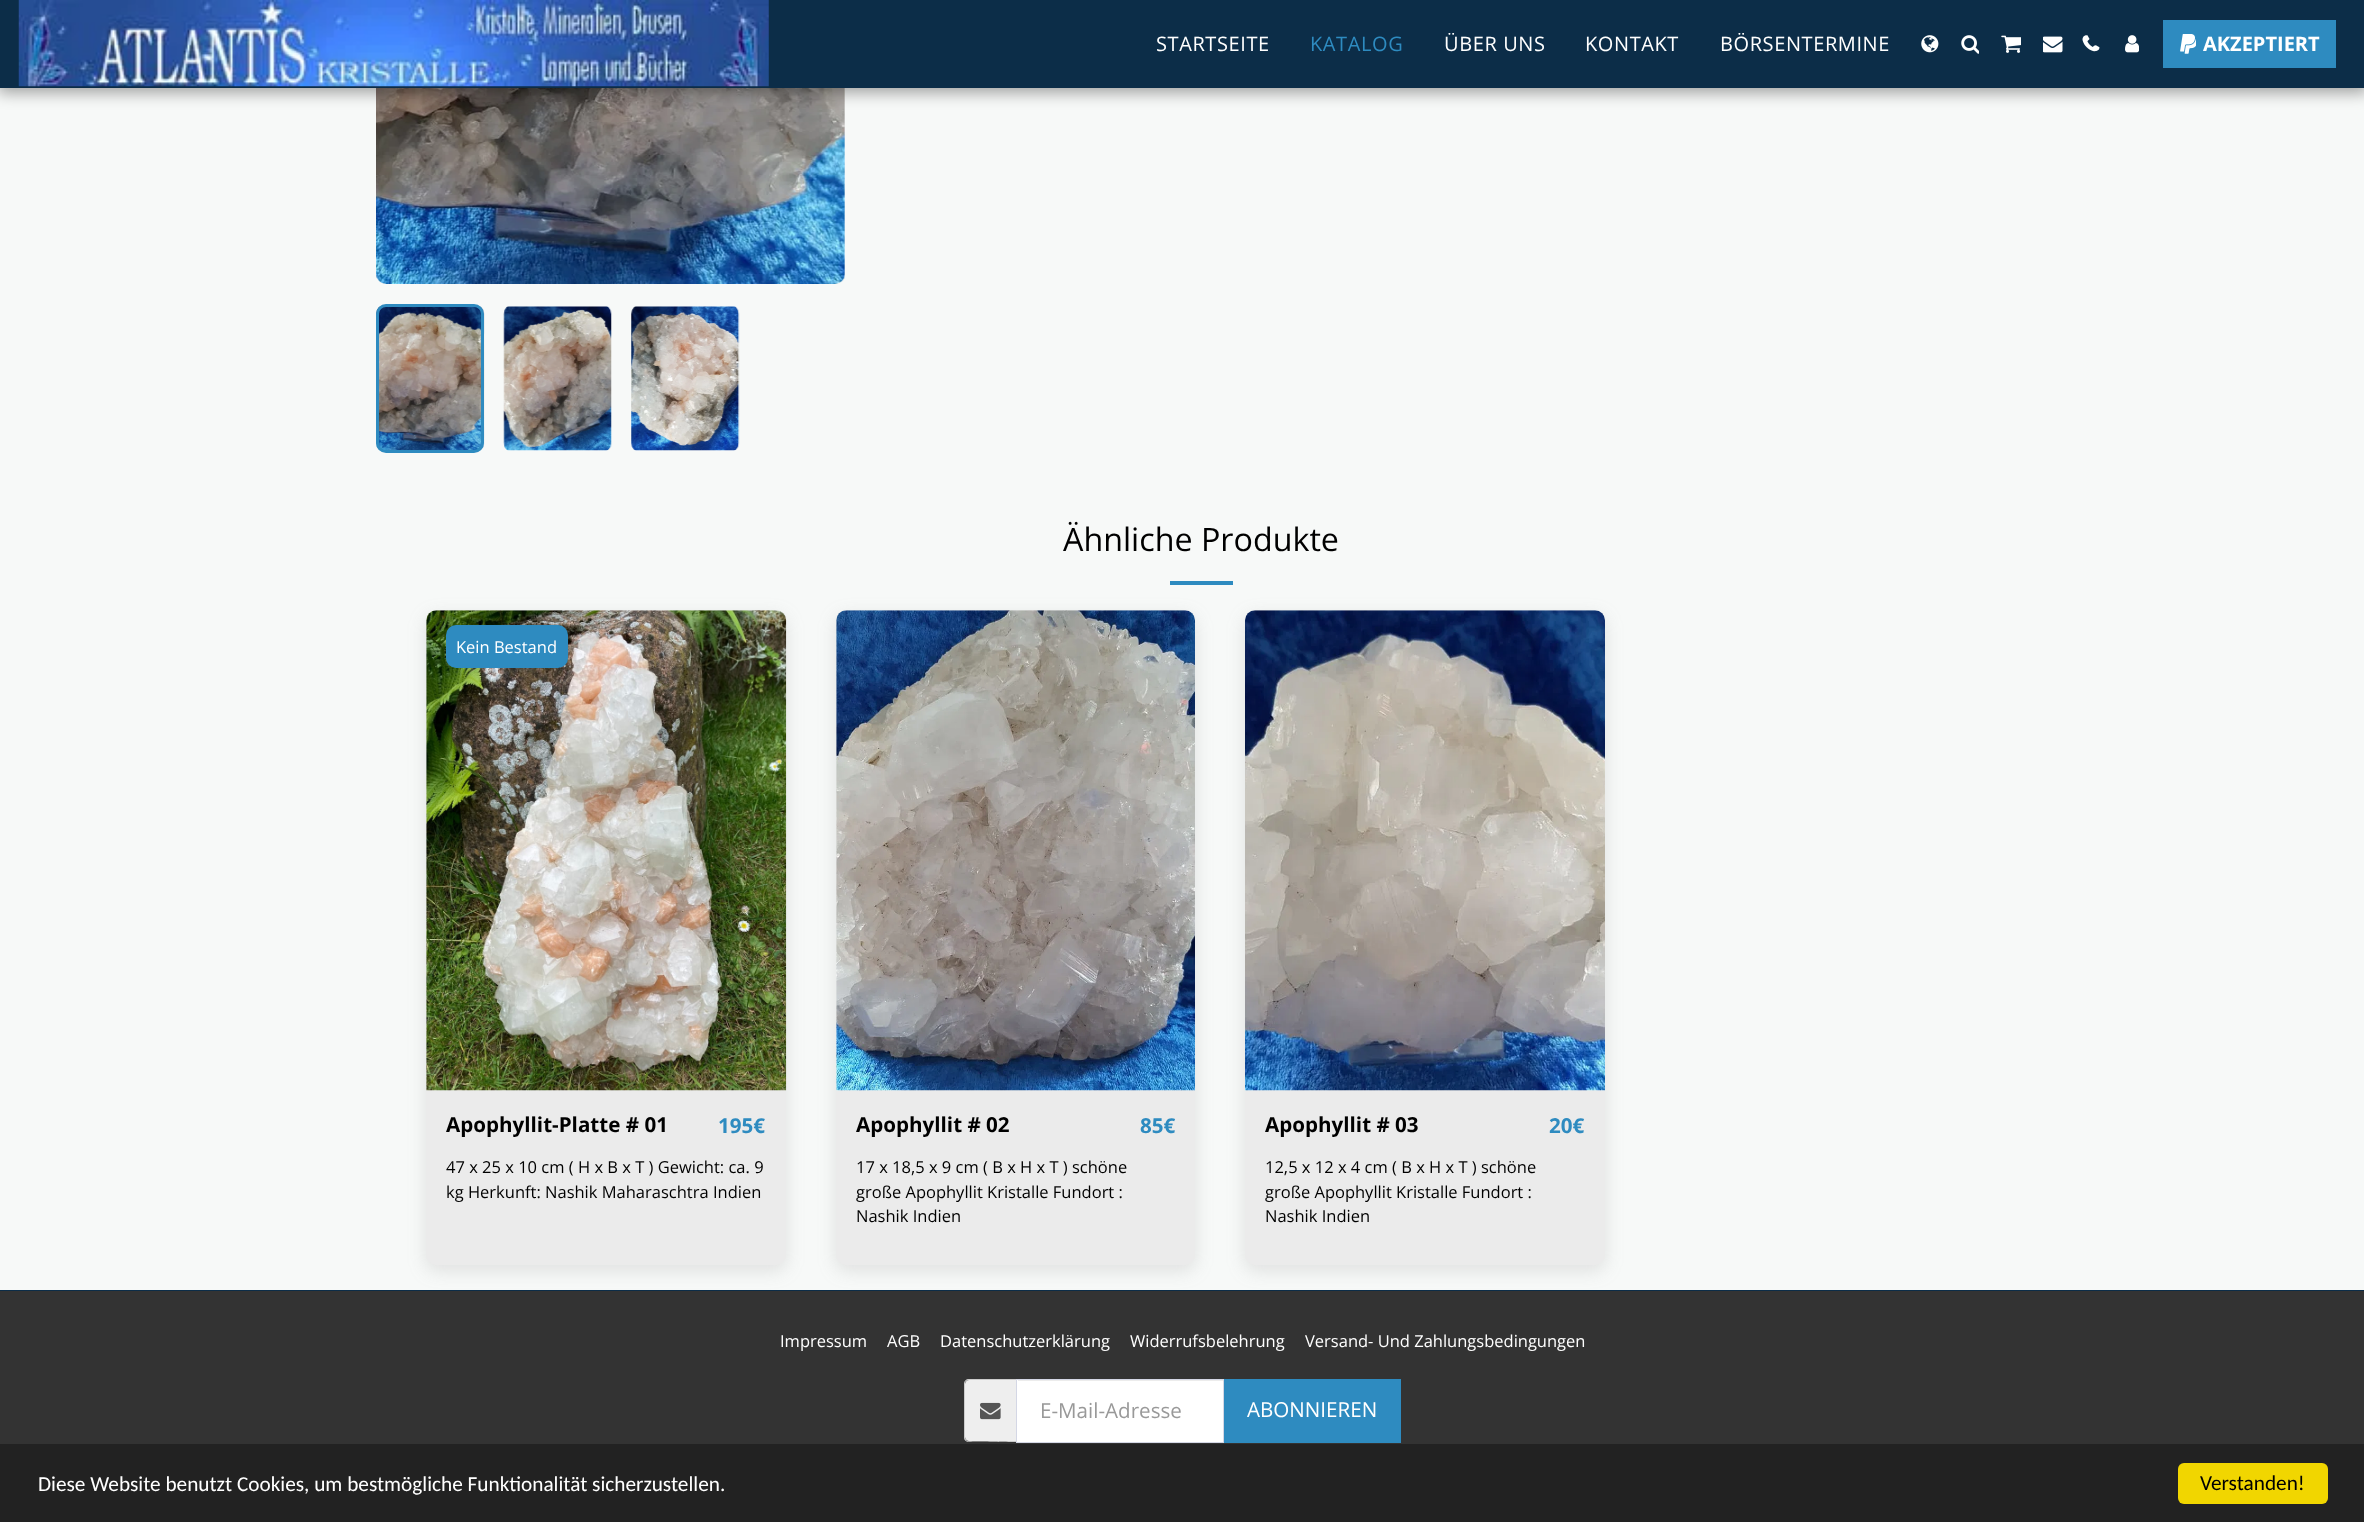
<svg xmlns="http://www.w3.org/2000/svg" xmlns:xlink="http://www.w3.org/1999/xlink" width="2364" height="1522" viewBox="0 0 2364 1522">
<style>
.cls-1{font:20px Open Sans;letter-spacing:0.6px;fill:#ffffff}
.cls-2{font:20px Open Sans;letter-spacing:0.6px;fill:#2e8bc0}
.cls-3{font:bold 20px Open Sans;fill:#ffffff}
.cls-4{font:32.25px Open Sans;fill:#000000}
.cls-5{font:16.5px Open Sans;fill:#ffffff}
.cls-6{font:bold 20.6px Open Sans;fill:#000000}
.cls-7{font:bold 20.6px Open Sans;fill:#2e8bc0}
.cls-8{font:16.5px Open Sans;fill:#000000}
.cls-9{font:20.6px Open Sans;fill:#999999}
.cls-10{font:20.6px Open Sans;fill:#ffffff}
.cls-11{font:21.25px Carlito;fill:#ffffff}
.cls-12{font:21.25px Carlito;fill:#000000}
</style>
<rect width="100%" height="100%" fill="#f7f9f8"/>
<image xlink:href="image9.png" x="376" y="88" width="469" height="196"/>
<rect fill="#000000" fill-opacity="0.35" filter="blur(7.5px)" x="-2" y="0" width="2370" height="93"/>
<rect fill="#0c2d48" x="0" y="0" width="2364" height="88"/>
<image xlink:href="image0.png" x="18" y="0" width="751" height="87"/>
<image xlink:href="image1.png" x="1921" y="35" width="18" height="18"/>
<image xlink:href="image2.png" x="1961" y="35" width="18" height="19"/>
<image xlink:href="image3.png" x="2001" y="35" width="20" height="18"/>
<image xlink:href="image4.png" x="2043" y="36" width="20" height="17"/>
<image xlink:href="image5.png" x="2085" y="35" width="15" height="16"/>
<image xlink:href="image6.png" x="2082" y="35" width="16" height="17"/>
<image xlink:href="image7.png" x="2125" y="35" width="14" height="18"/>
<rect fill="#2e8bc0" x="2163" y="20" width="173" height="48"/>
<image xlink:href="image8.png" x="2180" y="34" width="16" height="20"/>
<image xlink:href="image10.png" x="376" y="306" width="109" height="145"/>
<rect fill="none" stroke="#2e8bc0" stroke-width="3" x="377.5" y="305.5" width="105" height="146" rx="8.5"/>
<image xlink:href="image11.png" x="503" y="306" width="109" height="145"/>
<image xlink:href="image12.png" x="631" y="306" width="109" height="145"/>
<rect fill="#2e8bc0" x="1170" y="581" width="63" height="4"/>
<rect fill="#0c2d48" x="0" y="1290" width="2364" height="1"/>
<rect fill="#333333" x="0" y="1291" width="2364" height="153"/>
<rect fill="#818181" fill-opacity="0.2" filter="blur(9px)" x="426" y="616" width="360" height="655" rx="10"/>
<rect fill="#ebebeb" x="426" y="610" width="360" height="655" rx="10"/>
<image xlink:href="image13.png" x="426" y="610" width="361" height="481"/>
<rect fill="#2e8bc0" x="446" y="625" width="122" height="43" rx="10"/>
<rect fill="#818181" fill-opacity="0.2" filter="blur(9px)" x="836" y="616" width="359" height="655" rx="10"/>
<rect fill="#ebebeb" x="836" y="610" width="359" height="655" rx="10"/>
<image xlink:href="image14.png" x="836" y="610" width="359" height="481"/>
<rect fill="#818181" fill-opacity="0.2" filter="blur(9px)" x="1245" y="616" width="360" height="655" rx="10"/>
<rect fill="#ebebeb" x="1245" y="610" width="360" height="655" rx="10"/>
<image xlink:href="image15.png" x="1245" y="610" width="360" height="481"/>
<path fill="#eeeeee" d="M969 1380H1016V1441H969C967 1441 965 1439 965 1437V1384C965 1382 967 1380 969 1380Z"/>
<path fill="#cccccc" fill-rule="evenodd" d="M969 1379H1016V1442H969C966 1442 964 1440 964 1438V1384C964 1381 966 1379 969 1379ZM969 1380H1016V1441C1010 1441 969 1442 967 1441L965 1438V1383L966 1381Z"/>
<image xlink:href="image16.png" x="980" y="1402" width="21" height="18"/>
<rect fill="#ffffff" x="1017" y="1380" width="206" height="62"/>
<rect fill="#ececec" x="1018" y="1380" width="205" height="1"/>
<rect fill="none" stroke="#d4d7e5" x="1016.5" y="1379.5" width="207" height="63"/>
<rect fill="#2e8bc0" x="1224" y="1379" width="177" height="64"/>
<rect fill="#222222" x="0" y="1444" width="2364" height="78"/>
<rect fill="#f1d600" x="2178" y="1463" width="150" height="41" rx="6"/>
<text class="cls-1" x="1156" y="51">STARTSEITE</text>
<text class="cls-2" x="1310" y="51">KATALOG</text>
<text class="cls-1" x="1444" y="51">ÜBER UNS</text>
<text class="cls-1" x="1585" y="51">KONTAKT</text>
<text class="cls-1" x="1720" y="51">BÖRSENTERMINE</text>
<text class="cls-3" x="2203" y="51">AKZEPTIERT</text>
<text class="cls-4" x="1063" y="551">Ähnliche Produkte</text>
<text class="cls-5" x="456" y="653">Kein Bestand</text>
<text class="cls-6" x="446" y="1132">Apophyllit-Platte # 01</text>
<text class="cls-7" x="718" y="1133">195€</text>
<text class="cls-8"><tspan x="446" y="1173">47 x 25 x 10 cm ( H x B x T ) Gewicht: ca. 9</tspan><tspan x="446" y="1198">kg Herkunft: Nashik Maharaschtra Indien</tspan></text>
<text class="cls-6" x="856" y="1132">Apophyllit # 02</text>
<text class="cls-7" x="1140" y="1133">85€</text>
<text class="cls-8"><tspan x="856" y="1173">17 x 18,5 x 9 cm ( B x H x T ) schöne</tspan><tspan x="856" y="1198">große Apophyllit Kristalle Fundort :</tspan><tspan x="856" y="1222">Nashik Indien</tspan></text>
<text class="cls-6" x="1265" y="1132">Apophyllit # 03</text>
<text class="cls-7" x="1549" y="1133">20€</text>
<text class="cls-8"><tspan x="1265" y="1173">12,5 x 12 x 4 cm ( B x H x T ) schöne</tspan><tspan x="1265" y="1198">große Apophyllit Kristalle Fundort :</tspan><tspan x="1265" y="1222">Nashik Indien</tspan></text>
<text class="cls-5" x="780" y="1347">Impressum</text>
<text class="cls-5" x="887" y="1347">AGB</text>
<text class="cls-5" x="940" y="1347">Datenschutzerklärung</text>
<text class="cls-5" x="1130" y="1347">Widerrufsbelehrung</text>
<text class="cls-5" x="1305" y="1347">Versand- Und Zahlungsbedingungen</text>
<text class="cls-9" x="1040" y="1418">E-Mail-Adresse</text>
<text class="cls-10" x="1247" y="1417">ABONNIEREN</text>
<text class="cls-11" x="38" y="1491">Diese Website benutzt Cookies, um bestmögliche Funktionalität sicherzustellen.</text>
<text class="cls-12" x="2200" y="1490">Verstanden!</text>
</svg>
